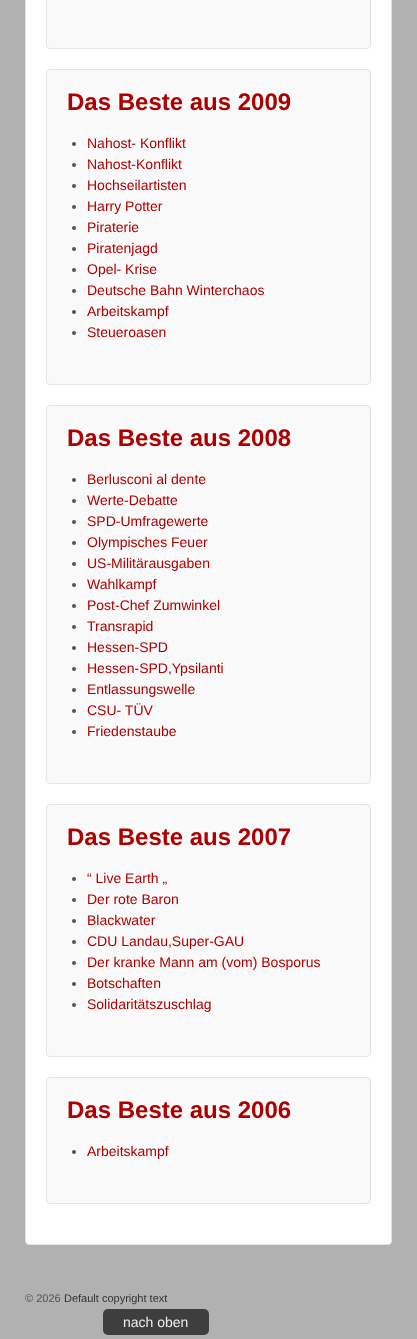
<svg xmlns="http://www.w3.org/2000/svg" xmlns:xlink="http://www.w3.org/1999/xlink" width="417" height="1339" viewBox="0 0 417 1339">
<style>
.cls-1{font:bold 24px Liberation Sans;fill:#ad0000}
.cls-2{font:14px Liberation Sans;fill:#ad0000}
.cls-3{font:11px Liberation Sans;fill:#555555}
.cls-4{font:11px Liberation Sans;fill:#333333}
.cls-5{font:14px Liberation Sans;fill:#efefef}
</style>
<rect width="100%" height="100%" fill="#b1b1b1"/>
<rect fill="#ffffff" stroke="#e5e5e5" x="25.5" y="-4.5" width="366" height="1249" rx="3.5"/>
<rect fill="#f9f9f9" stroke="#e5e5e5" x="46.5" y="-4.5" width="324" height="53" rx="3.5"/>
<rect fill="#f9f9f9" stroke="#e5e5e5" x="46.5" y="69.5" width="324" height="315" rx="3.5"/>
<circle fill="#555555" cx="74" cy="144" r="2"/>
<circle fill="#555555" cx="74" cy="165" r="2"/>
<circle fill="#555555" cx="74" cy="186" r="2"/>
<circle fill="#555555" cx="74" cy="207" r="2"/>
<circle fill="#555555" cx="74" cy="228" r="2"/>
<circle fill="#555555" cx="74" cy="249" r="2"/>
<circle fill="#555555" cx="74" cy="270" r="2"/>
<circle fill="#555555" cx="74" cy="291" r="2"/>
<circle fill="#555555" cx="74" cy="312" r="2"/>
<circle fill="#555555" cx="74" cy="333" r="2"/>
<rect fill="#f9f9f9" stroke="#e5e5e5" x="46.5" y="405.5" width="324" height="378" rx="3.5"/>
<circle fill="#555555" cx="74" cy="480" r="2"/>
<circle fill="#555555" cx="74" cy="501" r="2"/>
<circle fill="#555555" cx="74" cy="522" r="2"/>
<circle fill="#555555" cx="74" cy="543" r="2"/>
<circle fill="#555555" cx="74" cy="564" r="2"/>
<circle fill="#555555" cx="74" cy="585" r="2"/>
<circle fill="#555555" cx="74" cy="606" r="2"/>
<circle fill="#555555" cx="74" cy="627" r="2"/>
<circle fill="#555555" cx="74" cy="648" r="2"/>
<circle fill="#555555" cx="74" cy="669" r="2"/>
<circle fill="#555555" cx="74" cy="690" r="2"/>
<circle fill="#555555" cx="74" cy="711" r="2"/>
<circle fill="#555555" cx="74" cy="732" r="2"/>
<rect fill="#f9f9f9" stroke="#e5e5e5" x="46.5" y="804.5" width="324" height="252" rx="3.5"/>
<circle fill="#555555" cx="74" cy="879" r="2"/>
<circle fill="#555555" cx="74" cy="900" r="2"/>
<circle fill="#555555" cx="74" cy="921" r="2"/>
<circle fill="#555555" cx="74" cy="942" r="2"/>
<circle fill="#555555" cx="74" cy="963" r="2"/>
<circle fill="#555555" cx="74" cy="984" r="2"/>
<circle fill="#555555" cx="74" cy="1005" r="2"/>
<rect fill="#f9f9f9" stroke="#e5e5e5" x="46.5" y="1077.5" width="324" height="126" rx="3.5"/>
<circle fill="#555555" cx="74" cy="1152" r="2"/>
<rect fill="#222222" fill-opacity="0.8" x="103" y="1309" width="106" height="26" rx="5"/>
<text class="cls-1" x="67" y="110">Das Beste aus 2009</text>
<text class="cls-2"><tspan x="87" y="148">Nahost- Konflikt</tspan><tspan x="87" y="169">Nahost-Konflikt</tspan><tspan x="87" y="190">Hochseilartisten</tspan><tspan x="87" y="211">Harry Potter</tspan><tspan x="87" y="232">Piraterie</tspan><tspan x="87" y="253">Piratenjagd</tspan><tspan x="87" y="274">Opel- Krise</tspan><tspan x="87" y="295">Deutsche Bahn Winterchaos</tspan><tspan x="87" y="316">Arbeitskampf</tspan><tspan x="87" y="337">Steueroasen</tspan></text>
<text class="cls-1" x="67" y="446">Das Beste aus 2008</text>
<text class="cls-2"><tspan x="87" y="484">Berlusconi al dente</tspan><tspan x="87" y="505">Werte-Debatte</tspan><tspan x="87" y="526">SPD-Umfragewerte</tspan><tspan x="87" y="547">Olympisches Feuer</tspan><tspan x="87" y="568">US-Militärausgaben</tspan><tspan x="87" y="589">Wahlkampf</tspan><tspan x="87" y="610">Post-Chef Zumwinkel</tspan><tspan x="87" y="631">Transrapid</tspan><tspan x="87" y="652">Hessen-SPD</tspan><tspan x="87" y="673">Hessen-SPD,Ypsilanti</tspan><tspan x="87" y="694">Entlassungswelle</tspan><tspan x="87" y="715">CSU- TÜV</tspan><tspan x="87" y="736">Friedenstaube</tspan></text>
<text class="cls-1" x="67" y="845">Das Beste aus 2007</text>
<text class="cls-2"><tspan x="87" y="883">“ Live Earth „</tspan><tspan x="87" y="904">Der rote Baron</tspan><tspan x="87" y="925">Blackwater</tspan><tspan x="87" y="946">CDU Landau,Super-GAU</tspan><tspan x="87" y="967">Der kranke Mann am (vom) Bosporus</tspan><tspan x="87" y="988">Botschaften</tspan><tspan x="87" y="1009">Solidaritätszuschlag</tspan></text>
<text class="cls-1" x="67" y="1118">Das Beste aus 2006</text>
<text class="cls-2" x="87" y="1156">Arbeitskampf</text>
<text class="cls-3" x="25" y="1302">© 2026</text>
<text class="cls-4" x="64" y="1302">Default copyright text</text>
<text class="cls-5" x="123" y="1327">nach oben</text>
</svg>
